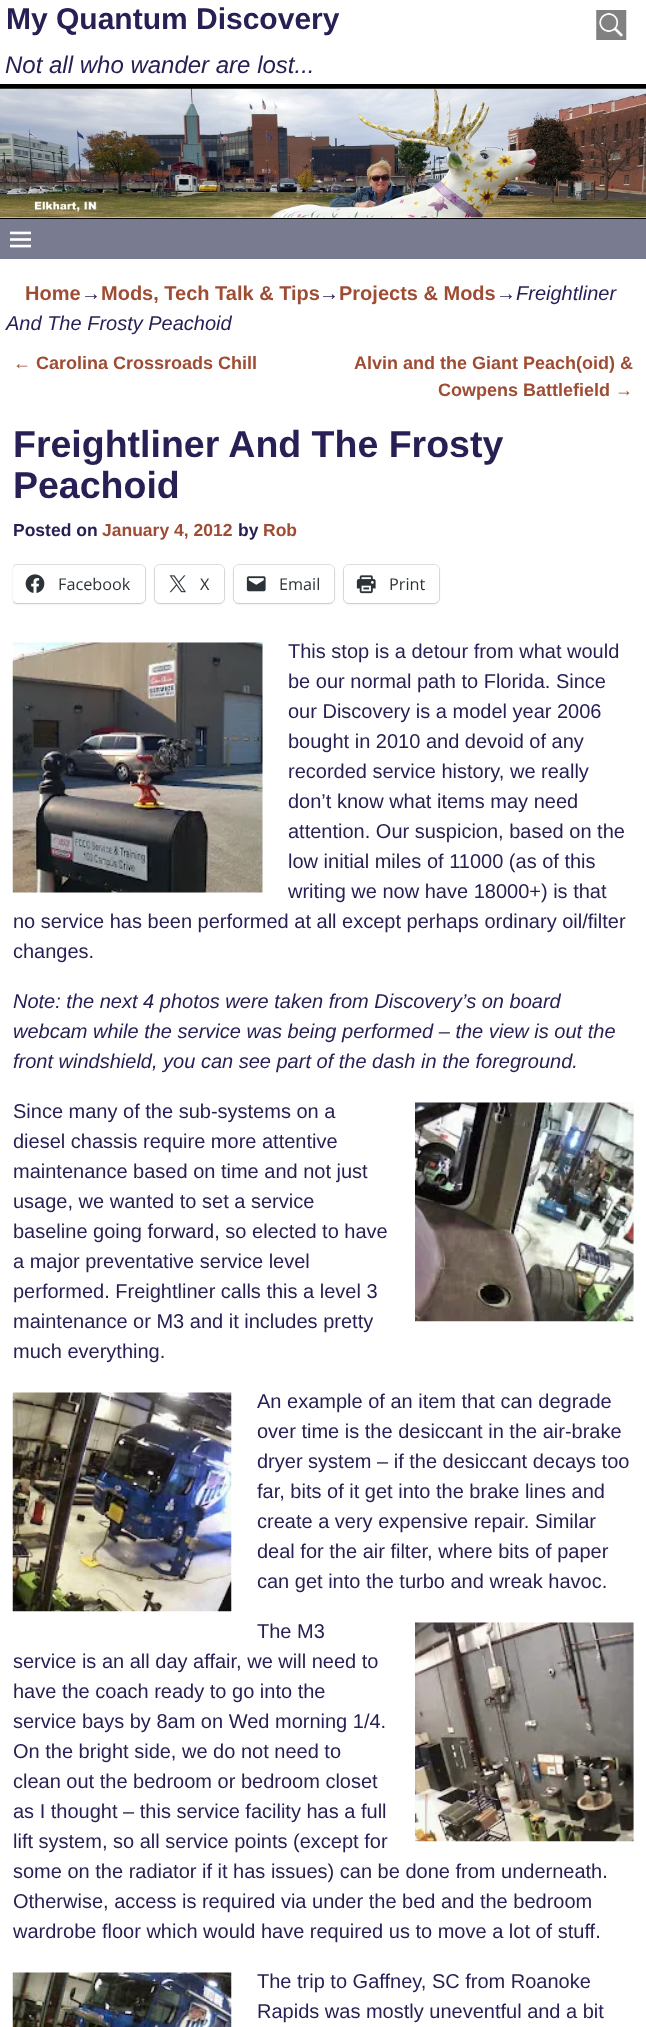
<svg xmlns="http://www.w3.org/2000/svg" xmlns:xlink="http://www.w3.org/1999/xlink" width="646" height="2027" viewBox="0 0 646 2027">
<style>
.cls-1{font:bold 30px Liberation Sans;fill:#282054}
.cls-2{font:italic 24px Liberation Sans;fill:#282054}
.cls-3{font:bold 20px Liberation Sans;fill:#9e4d34}
.cls-4{font:20px Liberation Sans;fill:#282054}
.cls-5{font:italic 20px Liberation Sans;fill:#282054}
.cls-6{font:18px Liberation Sans;fill:#9e4d34}
.cls-7{font:bold 18px Liberation Sans;fill:#9e4d34}
.cls-8{font:bold 37.5px Liberation Sans;fill:#282054}
.cls-9{font:bold 17.5px Liberation Sans;fill:#282054}
.cls-10{font:bold 17.5px Liberation Sans;fill:#9e4d34}
.cls-11{font:16.25px Open Sans;fill:#2c3338}
</style>
<defs>
<clipPath id="clip1"><rect x="13" y="414" width="621" height="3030"/></clipPath>
</defs>
<rect width="100%" height="100%" fill="#ffffff"/>
<image xlink:href="image0.png" x="596" y="10" width="31" height="30"/>
<rect fill="#000000" x="0" y="84" width="646" height="5"/>
<rect fill="#000000" x="0" y="218" width="646" height="1"/>
<image xlink:href="image1.png" x="0" y="88" width="646" height="130"/>
<rect fill="#797b90" x="0" y="219" width="646" height="40"/>
<image xlink:href="image2.png" x="10" y="231" width="21" height="17"/>
<g clip-path="url(#clip1)">
<rect fill="none" stroke="#e0e0e0" x="11.5" y="564.5" width="134" height="39" rx="5.5"/>
</g>
<rect fill="#000000" fill-opacity="0.12" filter="blur(1px)" x="13" y="566" width="132" height="38" rx="5"/>
<rect fill="#ffffff" x="13" y="565" width="132" height="38" rx="5"/>
<image xlink:href="image3.png" x="25" y="574" width="20" height="19"/>
<rect fill="none" stroke="#e0e0e0" x="154.5" y="564.5" width="70" height="39" rx="5.5"/>
<rect fill="#000000" fill-opacity="0.12" filter="blur(1px)" x="155" y="566" width="69" height="38" rx="5"/>
<rect fill="#ffffff" x="155" y="565" width="69" height="38" rx="5"/>
<image xlink:href="image4.png" x="169" y="575" width="17" height="18"/>
<rect fill="none" stroke="#e0e0e0" x="233.5" y="564.5" width="101" height="39" rx="5.5"/>
<rect fill="#000000" fill-opacity="0.12" filter="blur(1px)" x="234" y="566" width="100" height="38" rx="5"/>
<rect fill="#ffffff" x="234" y="565" width="100" height="38" rx="5"/>
<image xlink:href="image5.png" x="246" y="576" width="20" height="16"/>
<rect fill="none" stroke="#e0e0e0" x="343.5" y="564.5" width="96" height="39" rx="5.5"/>
<rect fill="#000000" fill-opacity="0.12" filter="blur(1px)" x="344" y="566" width="95" height="38" rx="5"/>
<rect fill="#ffffff" x="344" y="565" width="95" height="38" rx="5"/>
<image xlink:href="image6.png" x="356" y="575" width="20" height="19"/>
<image xlink:href="image7.png" x="12" y="642" width="251" height="251"/>
<image xlink:href="image8.png" x="415" y="1102" width="219" height="220"/>
<image xlink:href="image9.png" x="12" y="1392" width="220" height="220"/>
<image xlink:href="image10.png" x="415" y="1622" width="219" height="220"/>
<image xlink:href="image11.png" x="12" y="1972" width="220" height="55"/>
<text class="cls-1" x="6" y="29">My Quantum Discovery</text>
<text class="cls-2" x="5" y="73">Not all who wander are lost...</text>
<text class="cls-3" x="25" y="300">Home</text>
<text class="cls-4" x="81" y="300">→</text>
<text class="cls-3" x="101" y="300">Mods, Tech Talk &amp; Tips</text>
<text class="cls-4" x="319" y="300">→</text>
<text class="cls-3" x="339" y="300">Projects &amp; Mods</text>
<text class="cls-4" x="496" y="300">→</text>
<text class="cls-5" x="516" y="300">Freightliner</text>
<text class="cls-5" x="6" y="330">And The Frosty Peachoid</text>
<text class="cls-6" x="13" y="369">←</text>
<text class="cls-7" x="36" y="369">Carolina Crossroads Chill</text>
<text class="cls-7" x="354" y="369">Alvin and the Giant Peach(oid) &amp;</text>
<text class="cls-7" x="438" y="396">Cowpens Battlefield</text>
<text class="cls-6" x="615" y="396">→</text>
<text class="cls-8"><tspan x="13" y="457">Freightliner And The Frosty</tspan><tspan x="13" y="498">Peachoid</tspan></text>
<text class="cls-9" x="13" y="536">Posted on</text>
<text class="cls-10" x="102" y="536">January 4, 2012</text>
<text class="cls-9" x="238" y="536">by</text>
<text class="cls-10" x="263" y="536">Rob</text>
<text class="cls-11" x="58" y="590">Facebook</text>
<text class="cls-11" x="200" y="590">X</text>
<text class="cls-11" x="279" y="590">Email</text>
<text class="cls-11" x="389" y="590">Print</text>
<text class="cls-4"><tspan x="288" y="658">This stop is a detour from what would</tspan><tspan x="288" y="688">be our normal path to Florida. Since</tspan><tspan x="288" y="718">our Discovery is a model year 2006</tspan><tspan x="288" y="748">bought in 2010 and devoid of any</tspan><tspan x="288" y="778">recorded service history, we really</tspan><tspan x="288" y="808">don’t know what items may need</tspan><tspan x="288" y="838">attention. Our suspicion, based on the</tspan><tspan x="288" y="868">low initial miles of 11000 (as of this</tspan><tspan x="288" y="898">writing we now have 18000+) is that</tspan></text>
<text class="cls-4"><tspan x="13" y="928">no service has been performed at all except perhaps ordinary oil/filter</tspan><tspan x="13" y="958">changes.</tspan></text>
<text class="cls-5"><tspan x="13" y="1008">Note: the next 4 photos were taken from Discovery’s on board</tspan><tspan x="13" y="1038">webcam while the service was being performed – the view is out the</tspan><tspan x="13" y="1068">front windshield, you can see part of the dash in the foreground.</tspan></text>
<text class="cls-4"><tspan x="13" y="1118">Since many of the sub-systems on a</tspan><tspan x="13" y="1148">diesel chassis require more attentive</tspan><tspan x="13" y="1178">maintenance based on time and not just</tspan><tspan x="13" y="1208">usage, we wanted to set a service</tspan><tspan x="13" y="1238">baseline going forward, so elected to have</tspan><tspan x="13" y="1268">a major preventative service level</tspan><tspan x="13" y="1298">performed. Freightliner calls this a level 3</tspan><tspan x="13" y="1328">maintenance or M3 and it includes pretty</tspan><tspan x="13" y="1358">much everything.</tspan></text>
<text class="cls-4"><tspan x="257" y="1408">An example of an item that can degrade</tspan><tspan x="257" y="1438">over time is the desiccant in the air-brake</tspan><tspan x="257" y="1468">dryer system – if the desiccant decays too</tspan><tspan x="257" y="1498">far, bits of it get into the brake lines and</tspan><tspan x="257" y="1528">create a very expensive repair. Similar</tspan><tspan x="257" y="1558">deal for the air filter, where bits of paper</tspan><tspan x="257" y="1588">can get into the turbo and wreak havoc.</tspan></text>
<text class="cls-4" x="257" y="1638">The M3</text>
<text class="cls-4"><tspan x="13" y="1668">service is an all day affair, we will need to</tspan><tspan x="13" y="1698">have the coach ready to go into the</tspan><tspan x="13" y="1728">service bays by 8am on Wed morning 1/4.</tspan><tspan x="13" y="1758">On the bright side, we do not need to</tspan><tspan x="13" y="1788">clean out the bedroom or bedroom closet</tspan><tspan x="13" y="1818">as I thought – this service facility has a full</tspan><tspan x="13" y="1848">lift system, so all service points (except for</tspan><tspan x="13" y="1878">some on the radiator if it has issues) can be done from underneath.</tspan><tspan x="13" y="1908">Otherwise, access is required via under the bed and the bedroom</tspan><tspan x="13" y="1938">wardrobe floor which would have required us to move a lot of stuff.</tspan></text>
<text class="cls-4"><tspan x="257" y="1988">The trip to Gaffney, SC from Roanoke</tspan><tspan x="257" y="2018">Rapids was mostly uneventful and a bit</tspan></text>
</svg>
